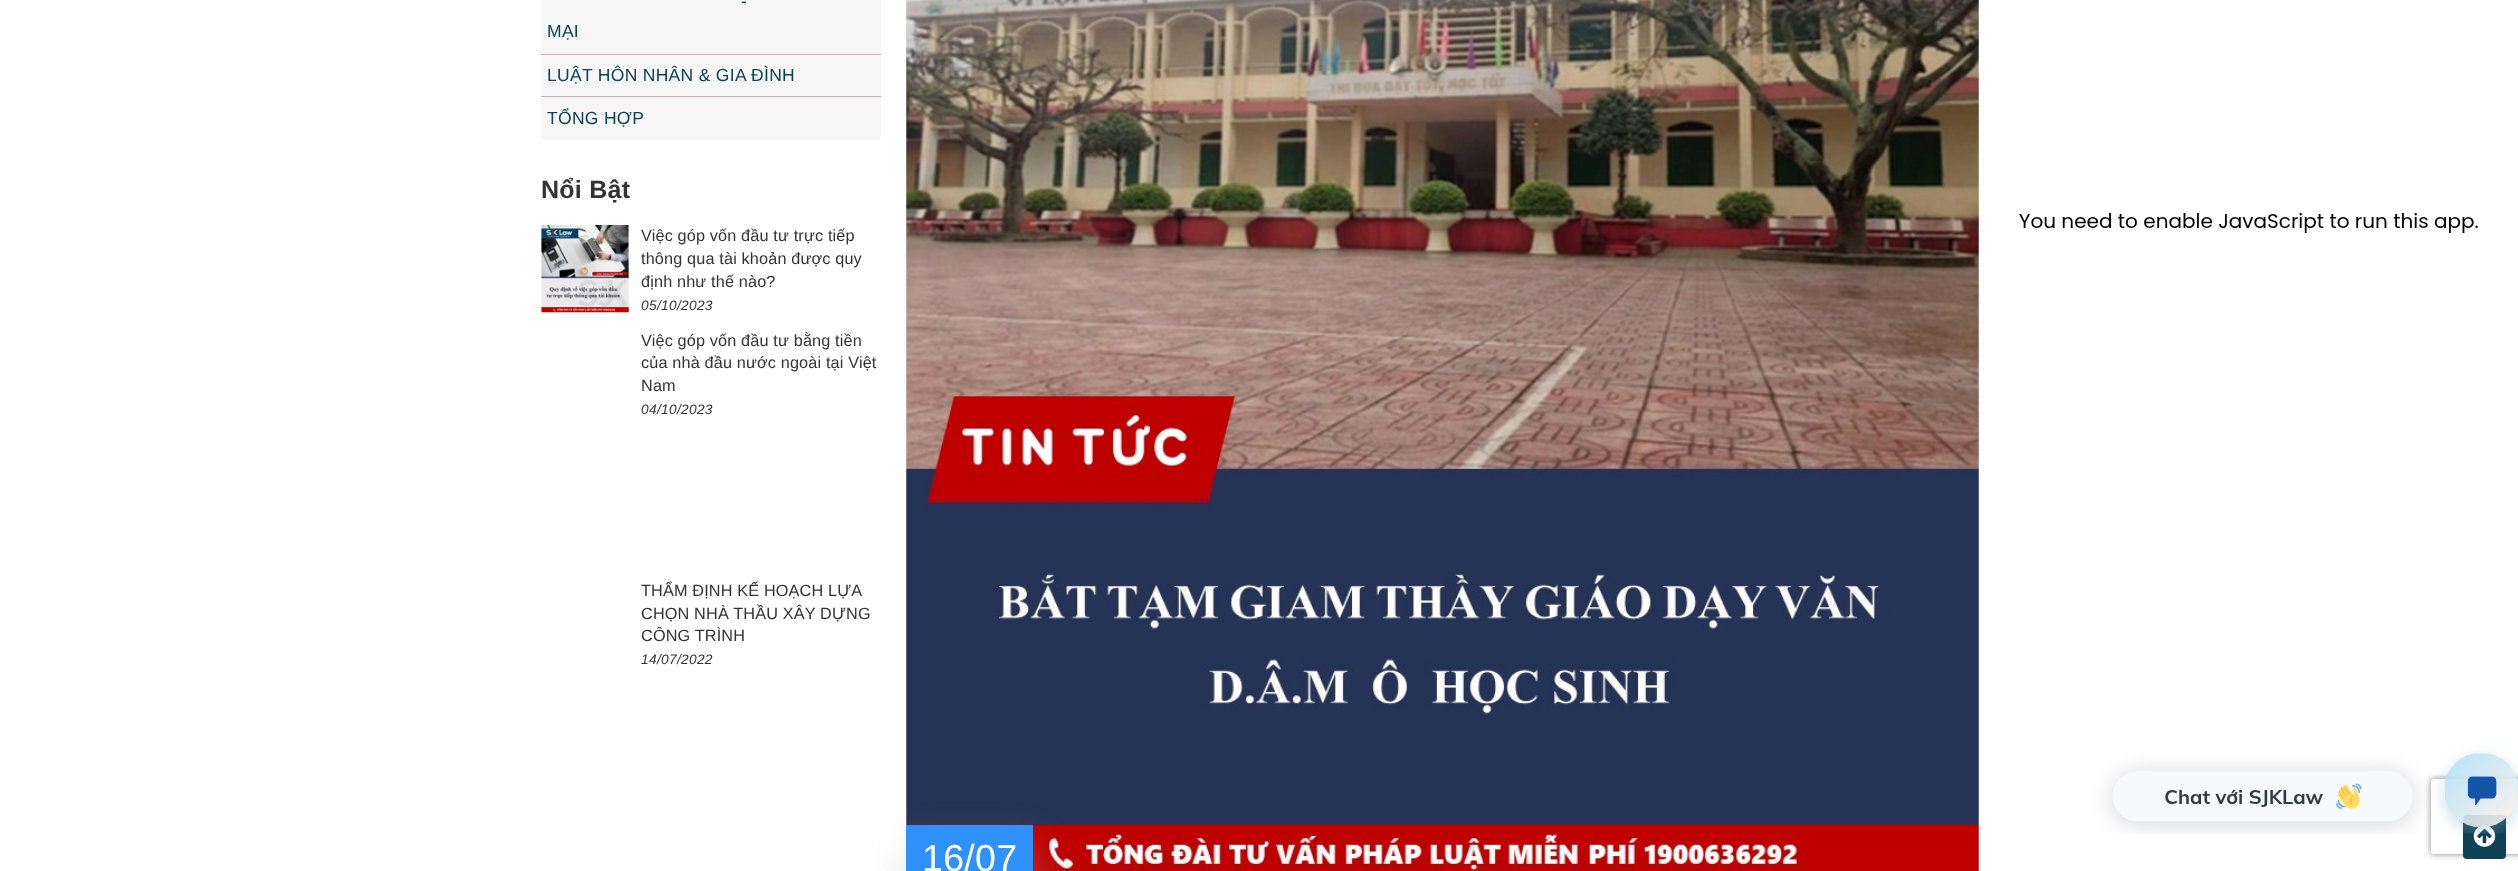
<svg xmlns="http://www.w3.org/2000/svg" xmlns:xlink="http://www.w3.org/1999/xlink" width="2518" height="871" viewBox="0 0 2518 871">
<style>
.cls-1{font:17.5px Liberation Sans;letter-spacing:0.3px;fill:#0e4155}
.cls-2{font:bold 25px Liberation Sans;letter-spacing:0.25px;fill:#333333}
.cls-3{font:16.25px Liberation Sans;letter-spacing:0.15px;fill:#333333}
.cls-4{font:italic 13.75px Liberation Sans;letter-spacing:0.3px;fill:#333333}
.cls-5{font:37.5px Liberation Sans;letter-spacing:0.3px;fill:#ffffff}
</style>
<defs>
<clipPath id="clip1"><path d="M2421 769H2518V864H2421ZM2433.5 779H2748.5C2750 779 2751 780 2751 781.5V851.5C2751 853 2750 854 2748.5 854H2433.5C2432 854 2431 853 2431 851.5V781.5C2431 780 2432 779 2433.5 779Z" clip-rule="evenodd"/></clipPath>
</defs>
<rect width="100%" height="100%" fill="#ffffff"/>
<path fill="#f6f6f6" d="M541-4H881V136C881 138 879 140 877 140H545C543 140 541 138 541 136Z"/>
<rect fill="#cfadb1" x="541" y="54" width="340" height="1"/>
<rect fill="#cfadb1" x="541" y="96" width="340" height="1"/>
<image xlink:href="image0.png" x="541" y="224" width="88" height="89"/>
<image xlink:href="image1.png" x="906" y="0" width="1073" height="871"/>
<rect fill="#b6b6b6" fill-opacity="0.35" filter="blur(20.5px)" x="906" y="848" width="127" height="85"/>
<rect fill="#2e91fc" x="906" y="825" width="127" height="46"/>
<g clip-path="url(#clip1)">
<rect fill="#808080" filter="blur(3px)" x="2431" y="779" width="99" height="75" rx="2.5"/>
</g>
<rect fill="#0e4155" x="2463" y="815" width="43" height="44" rx="4"/>
<image xlink:href="image3.png" x="2473" y="825" width="23" height="22"/>
<image xlink:href="image2.png" x="2019" y="213" width="499" height="621"/>
<text class="cls-1" x="741" y="7">-</text>
<text class="cls-1" x="547" y="37">MẠI</text>
<text class="cls-1" x="547" y="81">LUẬT HÔN NHÂN &amp; GIA ĐÌNH</text>
<text class="cls-1" x="547" y="124">TỔNG HỢP</text>
<text class="cls-2" x="541" y="198">Nổi Bật</text>
<text class="cls-3"><tspan x="641" y="241">Việc góp vốn đầu tư trực tiếp</tspan><tspan x="641" y="264">thông qua tài khoản được quy</tspan><tspan x="641" y="287">định như thế nào?</tspan></text>
<text class="cls-4" x="641" y="310">05/10/2023</text>
<text class="cls-3"><tspan x="641" y="346">Việc góp vốn đầu tư bằng tiền</tspan><tspan x="641" y="368">của nhà đầu nước ngoài tại Việt</tspan><tspan x="641" y="391">Nam</tspan></text>
<text class="cls-4" x="641" y="414">04/10/2023</text>
<text class="cls-3"><tspan x="641" y="596">THẨM ĐỊNH KẾ HOẠCH LỰA</tspan><tspan x="641" y="619">CHỌN NHÀ THẦU XÂY DỰNG</tspan><tspan x="641" y="641">CÔNG TRÌNH</tspan></text>
<text class="cls-4" x="641" y="664">14/07/2022</text>
<text class="cls-5" x="922" y="871">16/07</text>
</svg>
